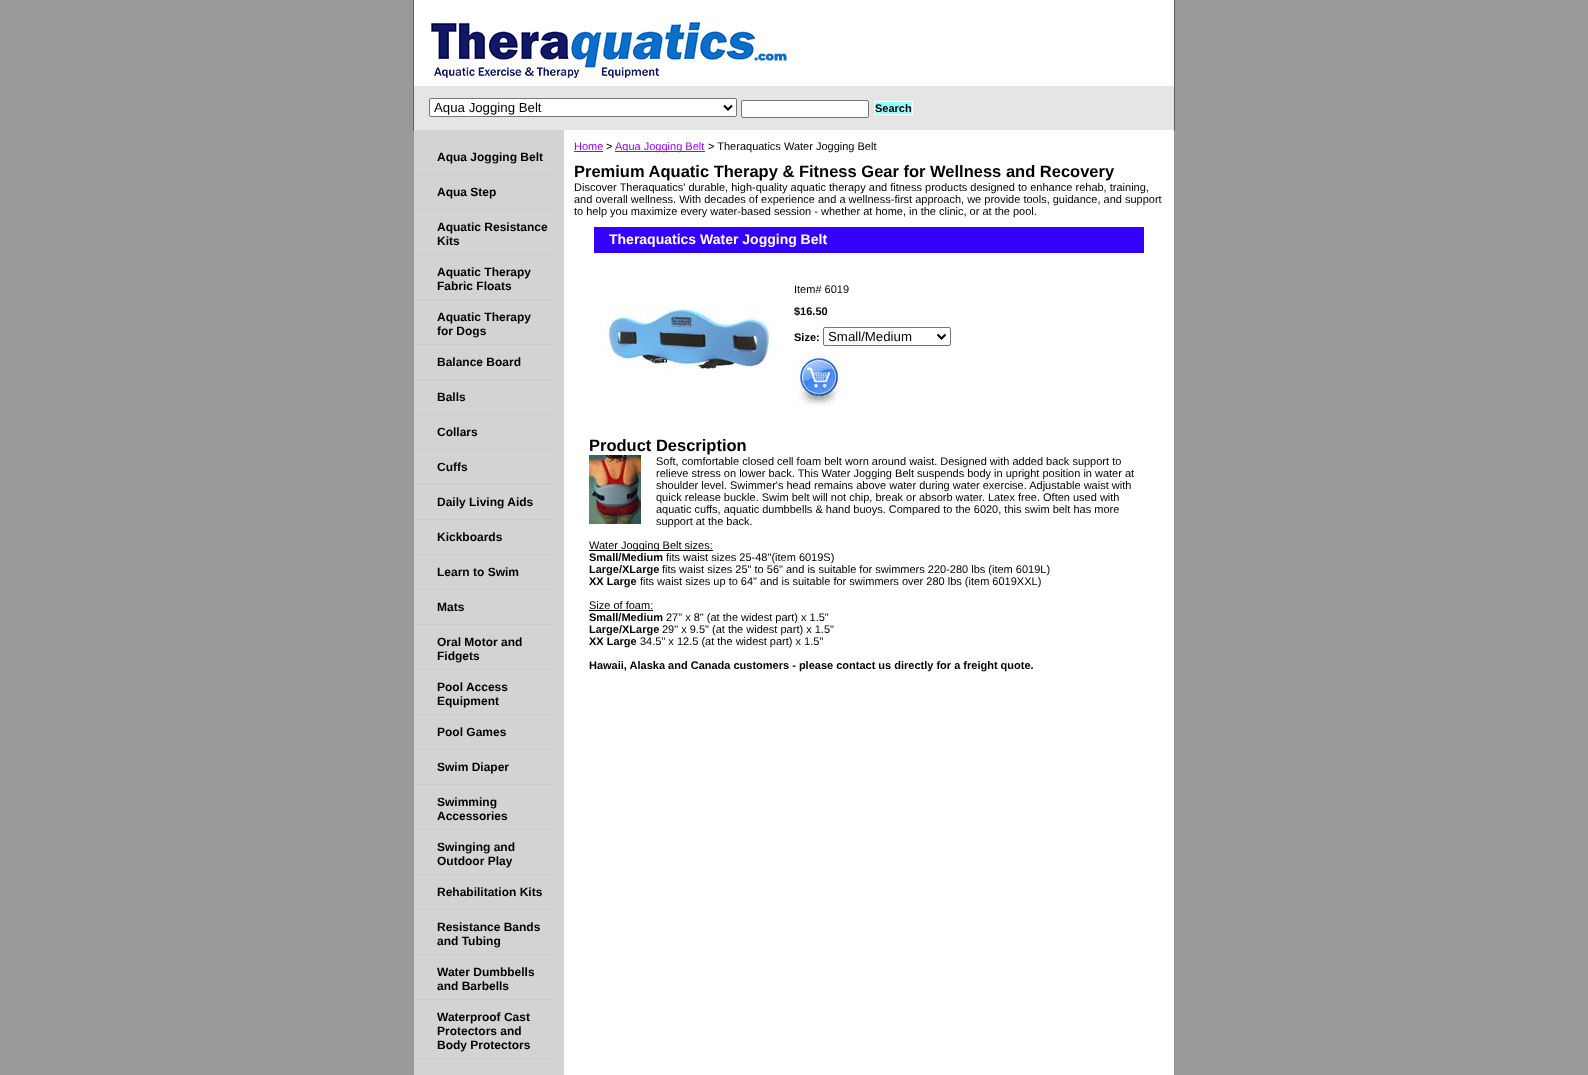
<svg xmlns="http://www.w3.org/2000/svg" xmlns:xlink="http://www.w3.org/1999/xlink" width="1588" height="1075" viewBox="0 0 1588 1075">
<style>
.cls-1{font:13.25px Liberation Sans;fill:#000000}
.cls-2{font:bold 11px Liberation Sans;fill:#000000}
.cls-3{font:bold 12px Liberation Sans;fill:#000000}
.cls-4{font:11px Liberation Sans;fill:#9900ff}
.cls-5{font:11px Liberation Sans;fill:#000000}
.cls-6{font:bold 16.5px Liberation Sans;fill:#000000}
.cls-7{font:bold 14px Liberation Sans;fill:#ffffff}
</style>
<rect width="100%" height="100%" fill="#999999"/>
<rect fill="none" stroke="#626262" x="413.5" y="-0.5" width="761" height="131"/>
<rect fill="#ffffff" x="414" y="0" width="760" height="86"/>
<image xlink:href="image0.png" x="431" y="22" width="356" height="56"/>
<rect fill="#e5e5e5" x="414" y="86" width="760" height="44"/>
<rect fill="#ffffff" stroke="#767676" x="429.5" y="98.5" width="307" height="18" rx="1.5"/>
<path fill="none" stroke="#000000" stroke-width="2" d="M724 105.5L728 109.5L732 105.5"/>
<rect fill="#ffffff" stroke="#767676" x="741.5" y="100.5" width="127" height="17" rx="1.5"/>
<rect fill="#99ffff" stroke="#ffffff" x="874.5" y="101.5" width="38" height="13"/>
<rect fill="#ffffff" x="564" y="130" width="610" height="945"/>
<rect fill="#d3d3d3" x="414" y="130" width="150" height="945"/>
<path fill="none" stroke="#bfc5b7" stroke-dasharray="1 1" d="M414 174.5H554"/>
<path fill="none" stroke="#bfc5b7" stroke-dasharray="1 1" d="M414 209.5H554"/>
<path fill="none" stroke="#bfc5b7" stroke-dasharray="1 1" d="M414 254.5H554"/>
<path fill="none" stroke="#bfc5b7" stroke-dasharray="1 1" d="M414 299.5H554"/>
<path fill="none" stroke="#bfc5b7" stroke-dasharray="1 1" d="M414 344.5H554"/>
<path fill="none" stroke="#bfc5b7" stroke-dasharray="1 1" d="M414 379.5H554"/>
<path fill="none" stroke="#bfc5b7" stroke-dasharray="1 1" d="M414 414.5H554"/>
<path fill="none" stroke="#bfc5b7" stroke-dasharray="1 1" d="M414 449.5H554"/>
<path fill="none" stroke="#bfc5b7" stroke-dasharray="1 1" d="M414 484.5H554"/>
<path fill="none" stroke="#bfc5b7" stroke-dasharray="1 1" d="M414 519.5H554"/>
<path fill="none" stroke="#bfc5b7" stroke-dasharray="1 1" d="M414 554.5H554"/>
<path fill="none" stroke="#bfc5b7" stroke-dasharray="1 1" d="M414 589.5H554"/>
<path fill="none" stroke="#bfc5b7" stroke-dasharray="1 1" d="M414 624.5H554"/>
<path fill="none" stroke="#bfc5b7" stroke-dasharray="1 1" d="M414 669.5H554"/>
<path fill="none" stroke="#bfc5b7" stroke-dasharray="1 1" d="M414 714.5H554"/>
<path fill="none" stroke="#bfc5b7" stroke-dasharray="1 1" d="M414 749.5H554"/>
<path fill="none" stroke="#bfc5b7" stroke-dasharray="1 1" d="M414 784.5H554"/>
<path fill="none" stroke="#bfc5b7" stroke-dasharray="1 1" d="M414 829.5H554"/>
<path fill="none" stroke="#bfc5b7" stroke-dasharray="1 1" d="M414 874.5H554"/>
<path fill="none" stroke="#bfc5b7" stroke-dasharray="1 1" d="M414 909.5H554"/>
<path fill="none" stroke="#bfc5b7" stroke-dasharray="1 1" d="M414 954.5H554"/>
<path fill="none" stroke="#bfc5b7" stroke-dasharray="1 1" d="M414 999.5H554"/>
<path fill="none" stroke="#bfc5b7" stroke-dasharray="1 1" d="M414 1058.5H554"/>
<rect fill="#9900ff" x="574" y="151" width="29" height="1"/>
<rect fill="#9900ff" x="615" y="151" width="90" height="1"/>
<rect fill="#3300ff" x="594" y="227" width="550" height="26"/>
<image xlink:href="image1.png" x="599" y="305" width="176" height="64"/>
<rect fill="none" stroke="#767676" x="823.5" y="327.5" width="127" height="18" rx="1.5"/>
<path fill="none" stroke="#000000" stroke-width="2" d="M937.5 334.5L941.5 338.5L945.5 334.5"/>
<image xlink:href="image2.png" x="794" y="356" width="48" height="50"/>
<image xlink:href="image3.png" x="589" y="455" width="52" height="69"/>
<rect fill="#000000" x="589" y="550" width="124" height="1"/>
<rect fill="#000000" x="589" y="610" width="64" height="1"/>
<text class="cls-1" x="434" y="112">Aqua Jogging Belt</text>
<text class="cls-2" x="875" y="112">Search</text>
<text class="cls-3" x="437" y="161">Aqua Jogging Belt</text>
<text class="cls-3" x="437" y="196">Aqua Step</text>
<text class="cls-3"><tspan x="437" y="231">Aquatic Resistance</tspan><tspan x="437" y="245">Kits</tspan></text>
<text class="cls-3"><tspan x="437" y="276">Aquatic Therapy</tspan><tspan x="437" y="290">Fabric Floats</tspan></text>
<text class="cls-3"><tspan x="437" y="321">Aquatic Therapy</tspan><tspan x="437" y="335">for Dogs</tspan></text>
<text class="cls-3" x="437" y="366">Balance Board</text>
<text class="cls-3" x="437" y="401">Balls</text>
<text class="cls-3" x="437" y="436">Collars</text>
<text class="cls-3" x="437" y="471">Cuffs</text>
<text class="cls-3" x="437" y="506">Daily Living Aids</text>
<text class="cls-3" x="437" y="541">Kickboards</text>
<text class="cls-3" x="437" y="576">Learn to Swim</text>
<text class="cls-3" x="437" y="611">Mats</text>
<text class="cls-3"><tspan x="437" y="646">Oral Motor and</tspan><tspan x="437" y="660">Fidgets</tspan></text>
<text class="cls-3"><tspan x="437" y="691">Pool Access</tspan><tspan x="437" y="705">Equipment</tspan></text>
<text class="cls-3" x="437" y="736">Pool Games</text>
<text class="cls-3" x="437" y="771">Swim Diaper</text>
<text class="cls-3"><tspan x="437" y="806">Swimming</tspan><tspan x="437" y="820">Accessories</tspan></text>
<text class="cls-3"><tspan x="437" y="851">Swinging and</tspan><tspan x="437" y="865">Outdoor Play</tspan></text>
<text class="cls-3" x="437" y="896">Rehabilitation Kits</text>
<text class="cls-3"><tspan x="437" y="931">Resistance Bands</tspan><tspan x="437" y="945">and Tubing</tspan></text>
<text class="cls-3"><tspan x="437" y="976">Water Dumbbells</tspan><tspan x="437" y="990">and Barbells</tspan></text>
<text class="cls-3"><tspan x="437" y="1021">Waterproof Cast</tspan><tspan x="437" y="1035">Protectors and</tspan><tspan x="437" y="1049">Body Protectors</tspan></text>
<text class="cls-4" x="574" y="150">Home</text>
<text class="cls-5" x="606" y="150">&gt;</text>
<text class="cls-4" x="615" y="150">Aqua Jogging Belt</text>
<text class="cls-5" x="708" y="150">&gt; Theraquatics Water Jogging Belt</text>
<text class="cls-6" x="574" y="177">Premium Aquatic Therapy &amp; Fitness Gear for Wellness and Recovery</text>
<text class="cls-5"><tspan x="574" y="191">Discover Theraquatics' durable, high-quality aquatic therapy and fitness products designed to enhance rehab, training,</tspan><tspan x="574" y="203">and overall wellness. With decades of experience and a wellness-first approach, we provide tools, guidance, and support</tspan><tspan x="574" y="215">to help you maximize every water-based session - whether at home, in the clinic, or at the pool.</tspan></text>
<text class="cls-7" x="609" y="244">Theraquatics Water Jogging Belt</text>
<text class="cls-5" x="794" y="293">Item# 6019</text>
<text class="cls-2" x="794" y="315">$16.50</text>
<text class="cls-2" x="794" y="341">Size:</text>
<text class="cls-1" x="828" y="341">Small/Medium</text>
<text class="cls-6" x="589" y="451">Product Description</text>
<text class="cls-5"><tspan x="656" y="465">Soft, comfortable closed cell foam belt worn around waist. Designed with added back support to</tspan><tspan x="656" y="477">relieve stress on lower back. This Water Jogging Belt suspends body in upright position in water at</tspan><tspan x="656" y="489">shoulder level. Swimmer's head remains above water during water exercise. Adjustable waist with</tspan><tspan x="656" y="501">quick release buckle. Swim belt will not chip, break or absorb water. Latex free. Often used with</tspan><tspan x="656" y="513">aquatic cuffs, aquatic dumbbells &amp; hand buoys. Compared to the 6020, this swim belt has more</tspan><tspan x="656" y="525">support at the back.</tspan></text>
<text class="cls-5" x="589" y="549">Water Jogging Belt sizes:</text>
<text class="cls-2" x="589" y="561">Small/Medium</text>
<text class="cls-5" x="666" y="561">fits waist sizes 25-48"(item 6019S)</text>
<text class="cls-2" x="589" y="573">Large/XLarge</text>
<text class="cls-5" x="662" y="573">fits waist sizes 25" to 56" and is suitable for swimmers 220-280 lbs (item 6019L)</text>
<text class="cls-2" x="589" y="585">XX Large</text>
<text class="cls-5" x="640" y="585">fits waist sizes up to 64" and is suitable for swimmers over 280 lbs (item 6019XXL)</text>
<text class="cls-5" x="589" y="609">Size of foam:</text>
<text class="cls-2" x="589" y="621">Small/Medium</text>
<text class="cls-5" x="666" y="621">27" x 8" (at the widest part) x 1.5"</text>
<text class="cls-2" x="589" y="633">Large/XLarge</text>
<text class="cls-5" x="662" y="633">29" x 9.5" (at the widest part) x 1.5"</text>
<text class="cls-2" x="589" y="645">XX Large</text>
<text class="cls-5" x="640" y="645">34.5" x 12.5 (at the widest part) x 1.5"</text>
<text class="cls-2" x="589" y="669">Hawaii, Alaska and Canada customers - please contact us directly for a freight quote.</text>
</svg>
